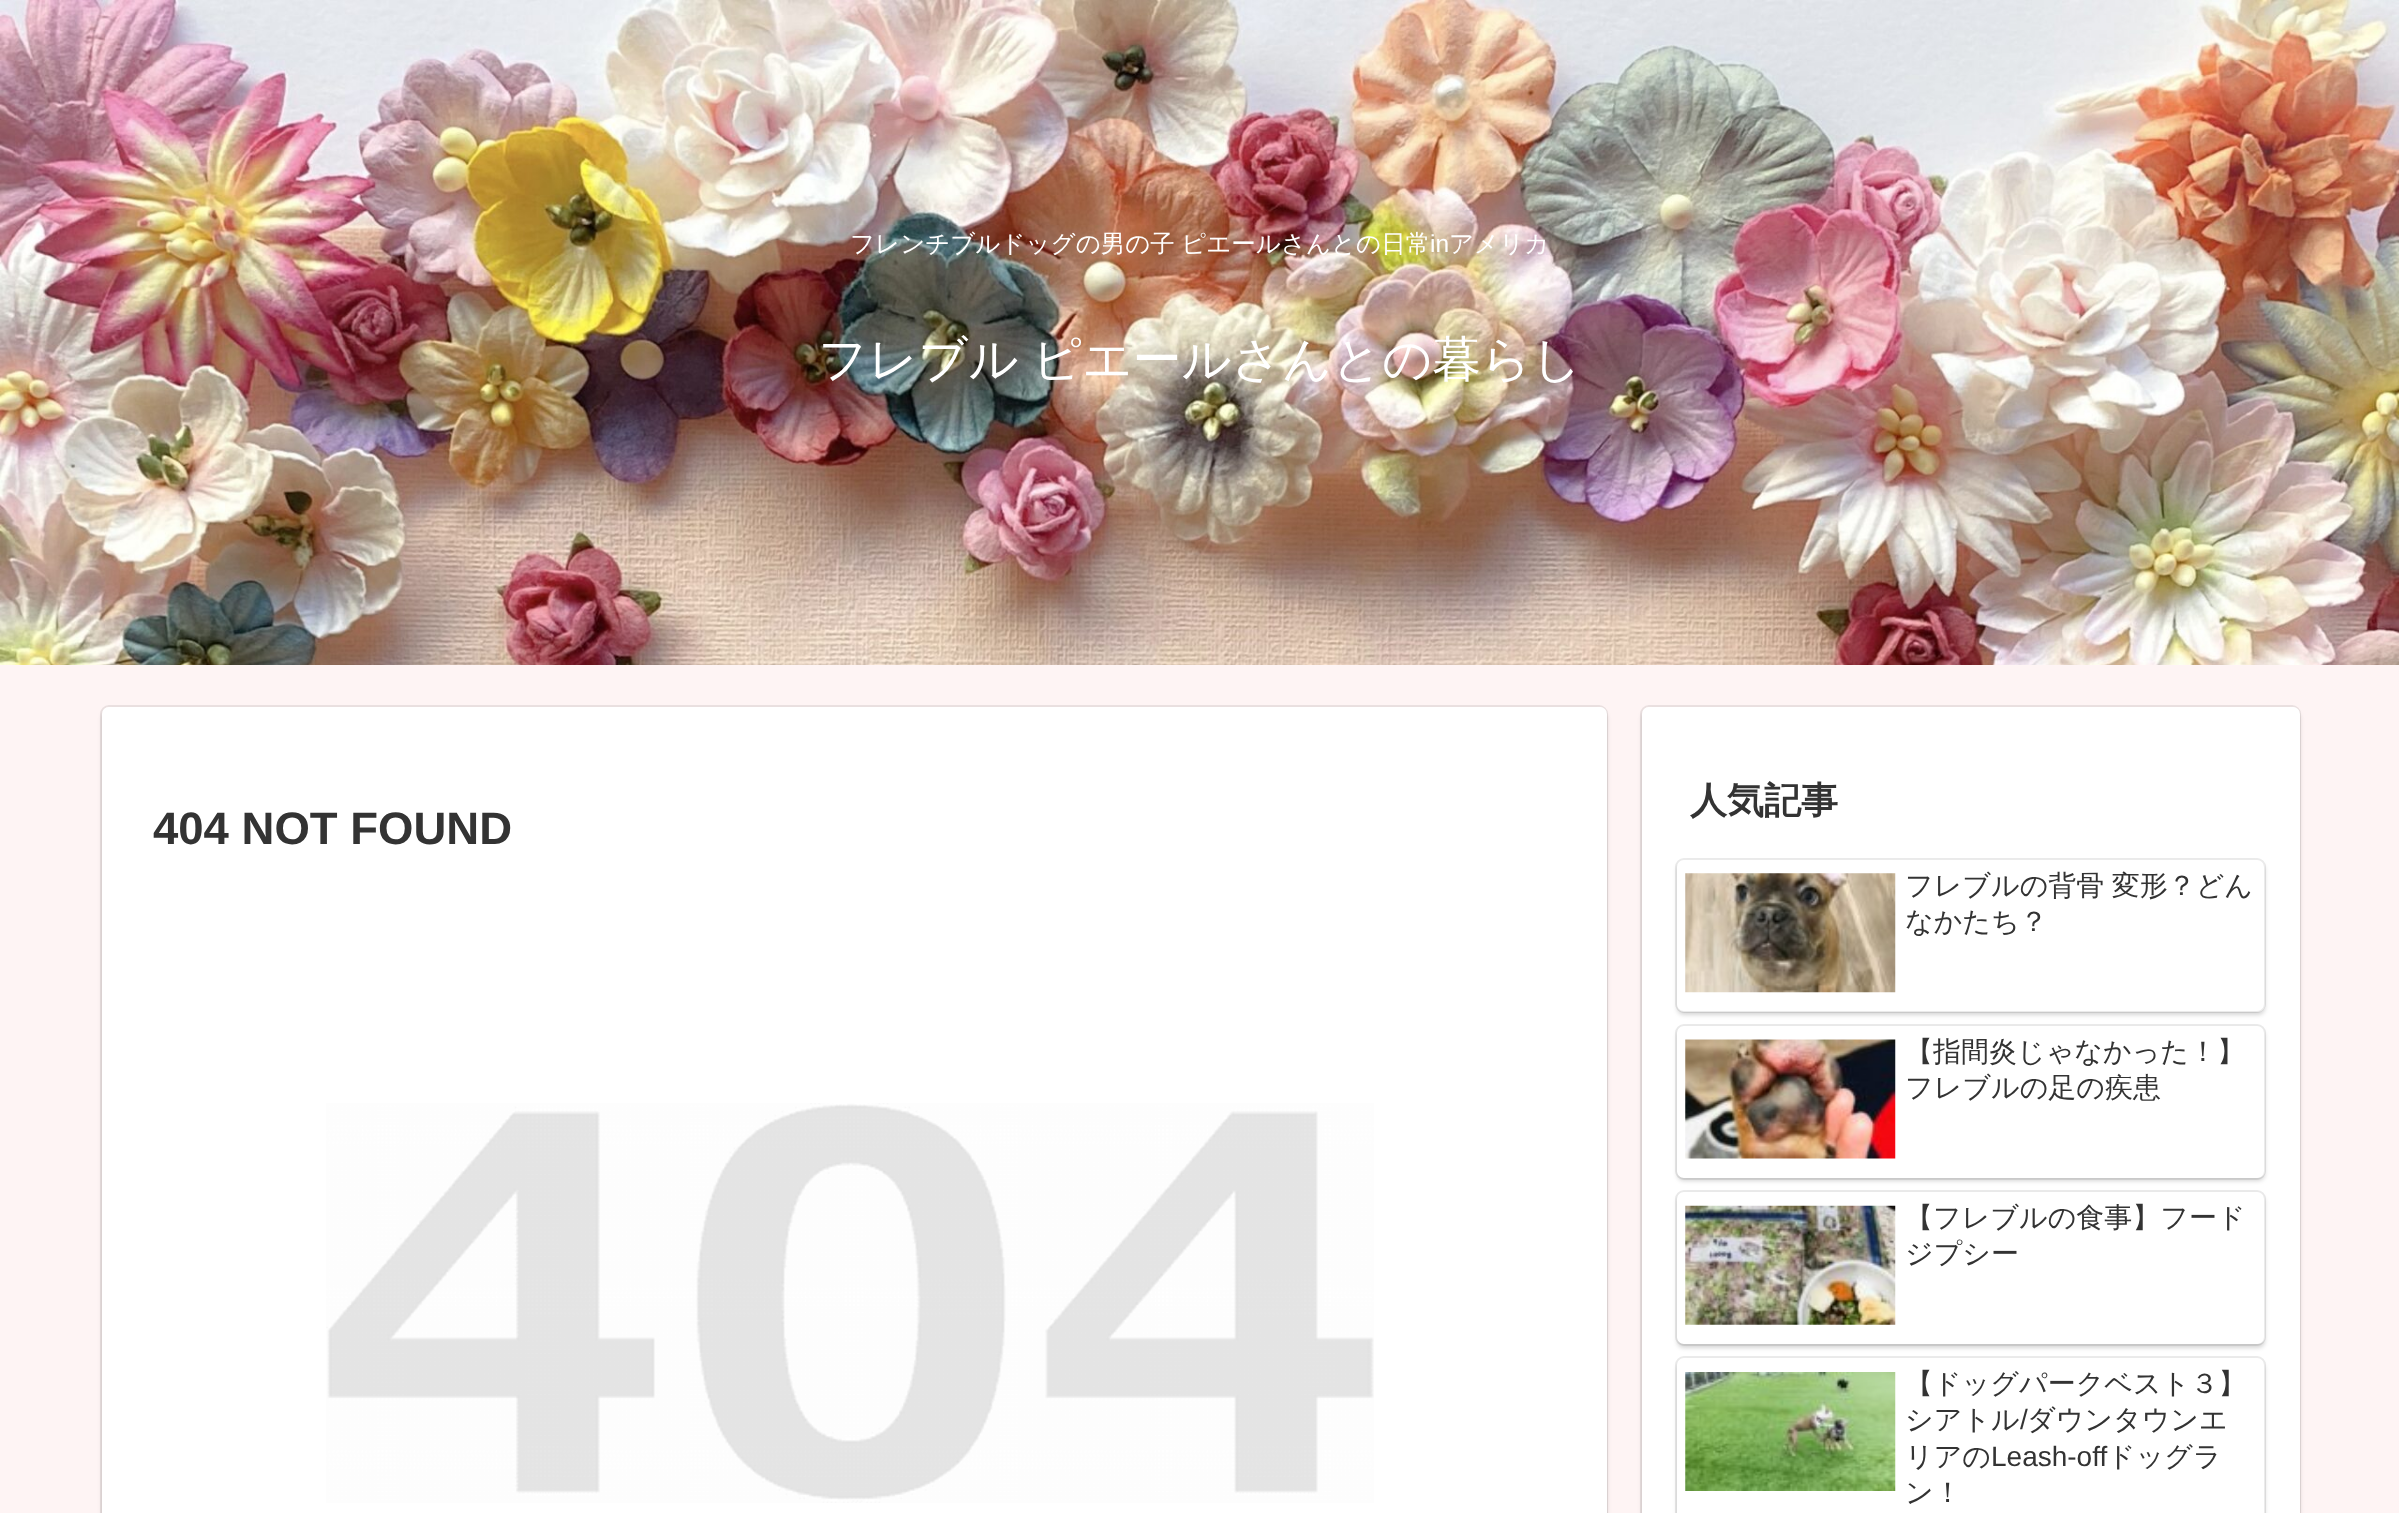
<svg xmlns="http://www.w3.org/2000/svg" xmlns:xlink="http://www.w3.org/1999/xlink" width="2399" height="1513" viewBox="0 0 2399 1513">
<style>
.cls-1{font:500 24.5px WenQuanYi Zen Hei;fill:#ffffff}
.cls-2{font:24.5px Liberation Sans;fill:#ffffff}
.cls-3{font:500 49px WenQuanYi Zen Hei;fill:#ffffff}
.cls-4{font:bold 45.5px Liberation Sans;fill:#333333}
.cls-5{font:bold 37px WenQuanYi Zen Hei;fill:#333333}
.cls-6{font:500 28px WenQuanYi Zen Hei;fill:#333333}
.cls-7{font:28px Liberation Sans;fill:#333333}
</style>
<defs>
<clipPath id="clip1"><path d="M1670 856H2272V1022H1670ZM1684 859H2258C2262 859 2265 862 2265 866V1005C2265 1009 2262 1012 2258 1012H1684C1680 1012 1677 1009 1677 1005V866C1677 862 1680 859 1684 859Z" clip-rule="evenodd"/></clipPath>
<clipPath id="clip2"><path d="M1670 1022H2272V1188H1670ZM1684 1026H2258C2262 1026 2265 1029 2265 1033V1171C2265 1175 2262 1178 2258 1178H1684C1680 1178 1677 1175 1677 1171V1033C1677 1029 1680 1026 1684 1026Z" clip-rule="evenodd"/></clipPath>
<clipPath id="clip3"><path d="M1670 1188H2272V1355H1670ZM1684 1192H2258C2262 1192 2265 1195 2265 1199V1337C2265 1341 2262 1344 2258 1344H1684C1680 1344 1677 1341 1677 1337V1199C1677 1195 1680 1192 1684 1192Z" clip-rule="evenodd"/></clipPath>
<clipPath id="clip4"><path d="M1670 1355H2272V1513H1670ZM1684 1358H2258C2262 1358 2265 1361 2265 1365V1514C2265 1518 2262 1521 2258 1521H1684C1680 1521 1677 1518 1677 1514V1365C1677 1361 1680 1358 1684 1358Z" clip-rule="evenodd"/></clipPath>
</defs>
<rect width="100%" height="100%" fill="#fef4f4"/>
<image xlink:href="image0.png" x="0" y="0" width="2399" height="665"/>
<rect fill="none" stroke="#eae0e0" stroke-width="2" x="101" y="706" width="1506" height="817" rx="8"/>
<rect fill="#000000" fill-opacity="0.16" filter="blur(2px)" x="102" y="711" width="1505" height="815" rx="7"/>
<rect fill="#ffffff" x="102" y="707" width="1505" height="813" rx="7"/>
<image xlink:href="image1.png" x="326" y="1103" width="1048" height="400"/>
<rect fill="none" stroke="#eae0e0" stroke-width="2" x="1641" y="706" width="659" height="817" rx="8"/>
<rect fill="#000000" fill-opacity="0.16" filter="blur(2px)" x="1642" y="711" width="658" height="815" rx="7"/>
<rect fill="#ffffff" x="1642" y="707" width="658" height="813" rx="7"/>
<rect fill="none" stroke="#ebebeb" stroke-width="2" x="1676" y="859" width="589" height="153" rx="8"/>
<g clip-path="url(#clip1)">
<rect fill="#000000" fill-opacity="0.16" filter="blur(2px)" x="1677" y="863" width="588" height="152" rx="7"/>
</g>
<image xlink:href="image2.png" x="1685" y="873" width="211" height="120"/>
<rect fill="none" stroke="#ebebeb" stroke-width="2" x="1676" y="1025" width="589" height="154" rx="8"/>
<g clip-path="url(#clip2)">
<rect fill="#000000" fill-opacity="0.16" filter="blur(2px)" x="1677" y="1029" width="588" height="152" rx="7"/>
</g>
<image xlink:href="image3.png" x="1685" y="1039" width="211" height="120"/>
<rect fill="none" stroke="#ebebeb" stroke-width="2" x="1676" y="1191" width="589" height="154" rx="8"/>
<g clip-path="url(#clip3)">
<rect fill="#000000" fill-opacity="0.16" filter="blur(2px)" x="1677" y="1195" width="588" height="153" rx="7"/>
</g>
<image xlink:href="image4.png" x="1685" y="1205" width="211" height="120"/>
<rect fill="none" stroke="#ebebeb" stroke-width="2" x="1676" y="1357" width="589" height="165" rx="8"/>
<g clip-path="url(#clip4)">
<rect fill="#000000" fill-opacity="0.16" filter="blur(2px)" x="1677" y="1362" width="588" height="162" rx="7"/>
</g>
<image xlink:href="image5.png" x="1685" y="1372" width="211" height="119"/>
<text class="cls-1" x="850" y="252" word-spacing="-1">フレンチブルドッグの男の子 ピエールさんとの日常</text>
<text class="cls-2" x="1430" y="252">in</text>
<text class="cls-1" x="1449" y="252">アメリカ</text>
<text class="cls-3" x="818" y="376" word-spacing="-1">フレブル ピエールさんとの暮らし</text>
<text class="cls-4" x="153" y="844">404 NOT FOUND</text>
<text class="cls-5" x="1690" y="813">人気記事</text>
<text class="cls-6"><tspan x="1905" y="895" word-spacing="-1">フレブルの背骨 変形？どん</tspan><tspan x="1905" y="931">なかたち？</tspan></text>
<text class="cls-6"><tspan x="1905" y="1061">【指間炎じゃなかった！】</tspan><tspan x="1905" y="1097">フレブルの足の疾患</tspan></text>
<text class="cls-6"><tspan x="1905" y="1227">【フレブルの食事】フード</tspan><tspan x="1905" y="1263">ジプシー</tspan></text>
<text class="cls-6"><tspan x="1905" y="1393">【ドッグパークベスト３】</tspan><tspan x="1905" y="1429">シアトル</tspan></text>
<text class="cls-7" x="2020" y="1429">/</text>
<text class="cls-6" x="2027" y="1429">ダウンタウンエ</text>
<text class="cls-6" x="1905" y="1466">リアの</text>
<text class="cls-7" x="1991" y="1466">Leash-off</text>
<text class="cls-6" x="2107" y="1466">ドッグラ</text>
<text class="cls-6" x="1905" y="1502">ン！</text>
</svg>
